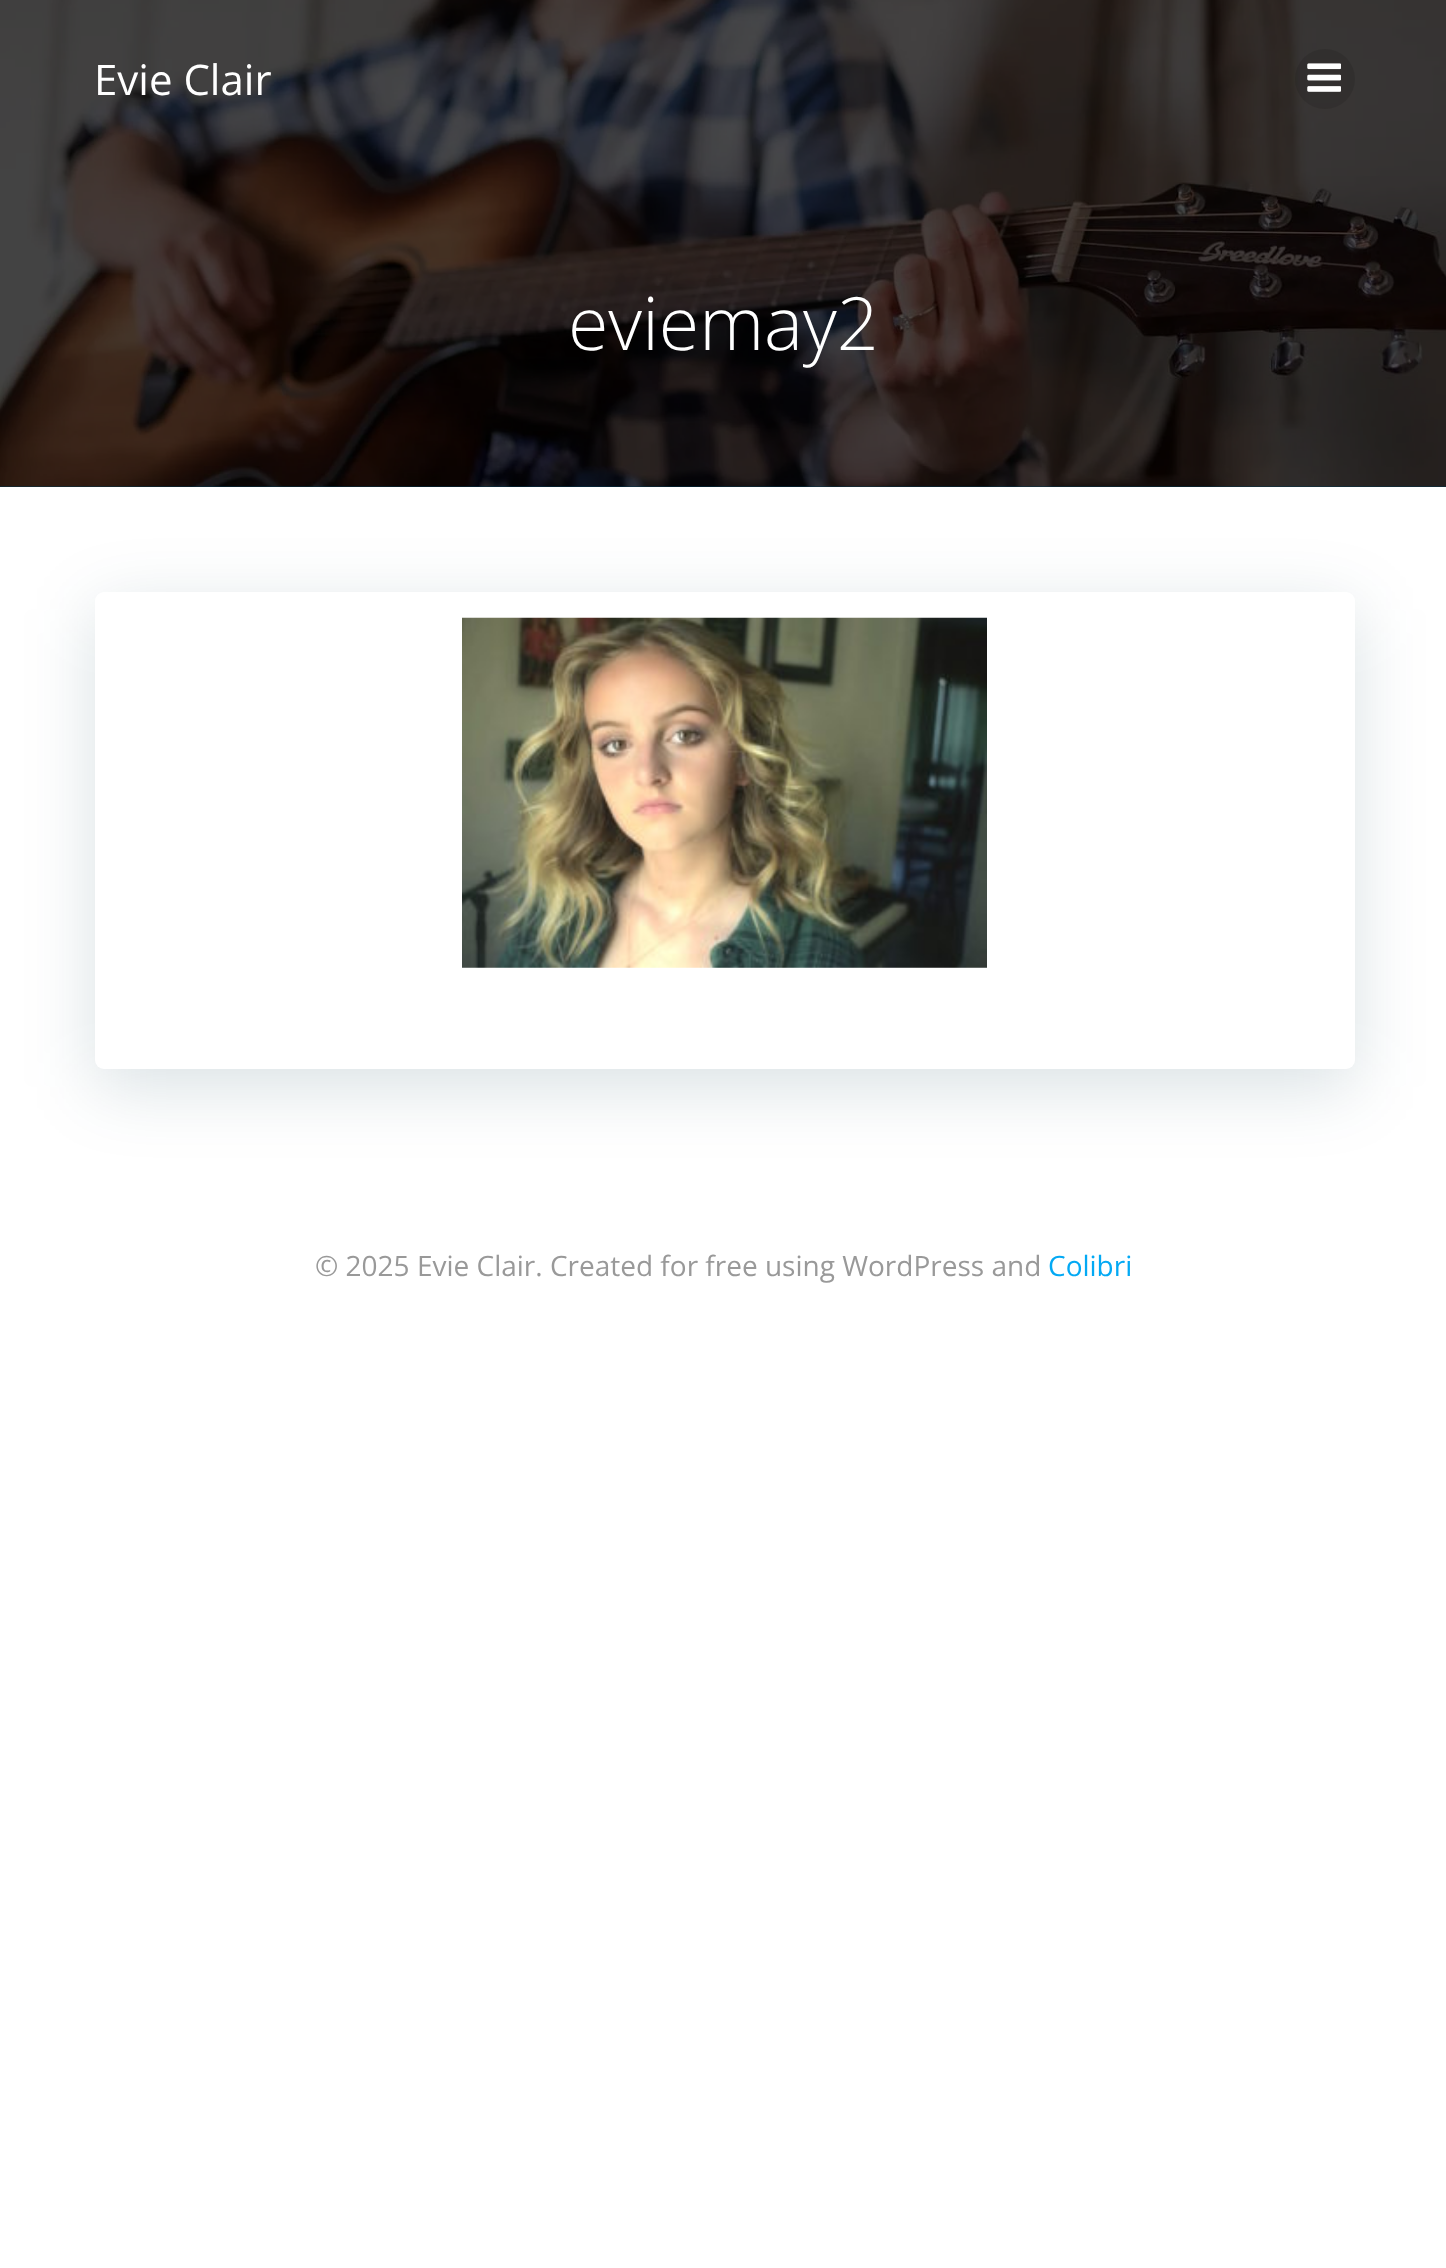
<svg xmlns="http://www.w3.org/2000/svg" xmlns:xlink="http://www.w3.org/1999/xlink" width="1446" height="2268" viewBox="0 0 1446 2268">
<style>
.cls-1{font:42px Open Sans;fill:#ffffff}
.cls-2{font:300 73.5px Open Sans;fill:#ffffff}
.cls-3{font:28px Open Sans;fill:#999999}
.cls-4{font:28px Open Sans;fill:#03a9f4}
</style>
<rect width="100%" height="100%" fill="#ffffff"/>
<rect fill="#013349" x="0" y="486" width="1446" height="1"/>
<image xlink:href="image1.png" x="0" y="0" width="1446" height="487"/>
<circle fill="#000000" fill-opacity="0.1" cx="1325" cy="79" r="30"/>
<image xlink:href="image0.png" x="1307" y="63" width="34" height="29"/>
<rect fill="#01334a" fill-opacity="0.15" filter="blur(35px)" x="95" y="609" width="1260" height="478" rx="9"/>
<rect fill="#ffffff" x="95" y="592" width="1260" height="477" rx="9"/>
<image xlink:href="image2.png" x="462" y="617" width="525" height="351"/>
<text class="cls-1" x="94" y="95">Evie Clair</text>
<text class="cls-2" x="568" y="350">eviemay2</text>
<text class="cls-3" x="315" y="1276">© 2025 Evie Clair. Created for free using WordPress and</text>
<text class="cls-4" x="1048" y="1276">Colibri</text>
</svg>
